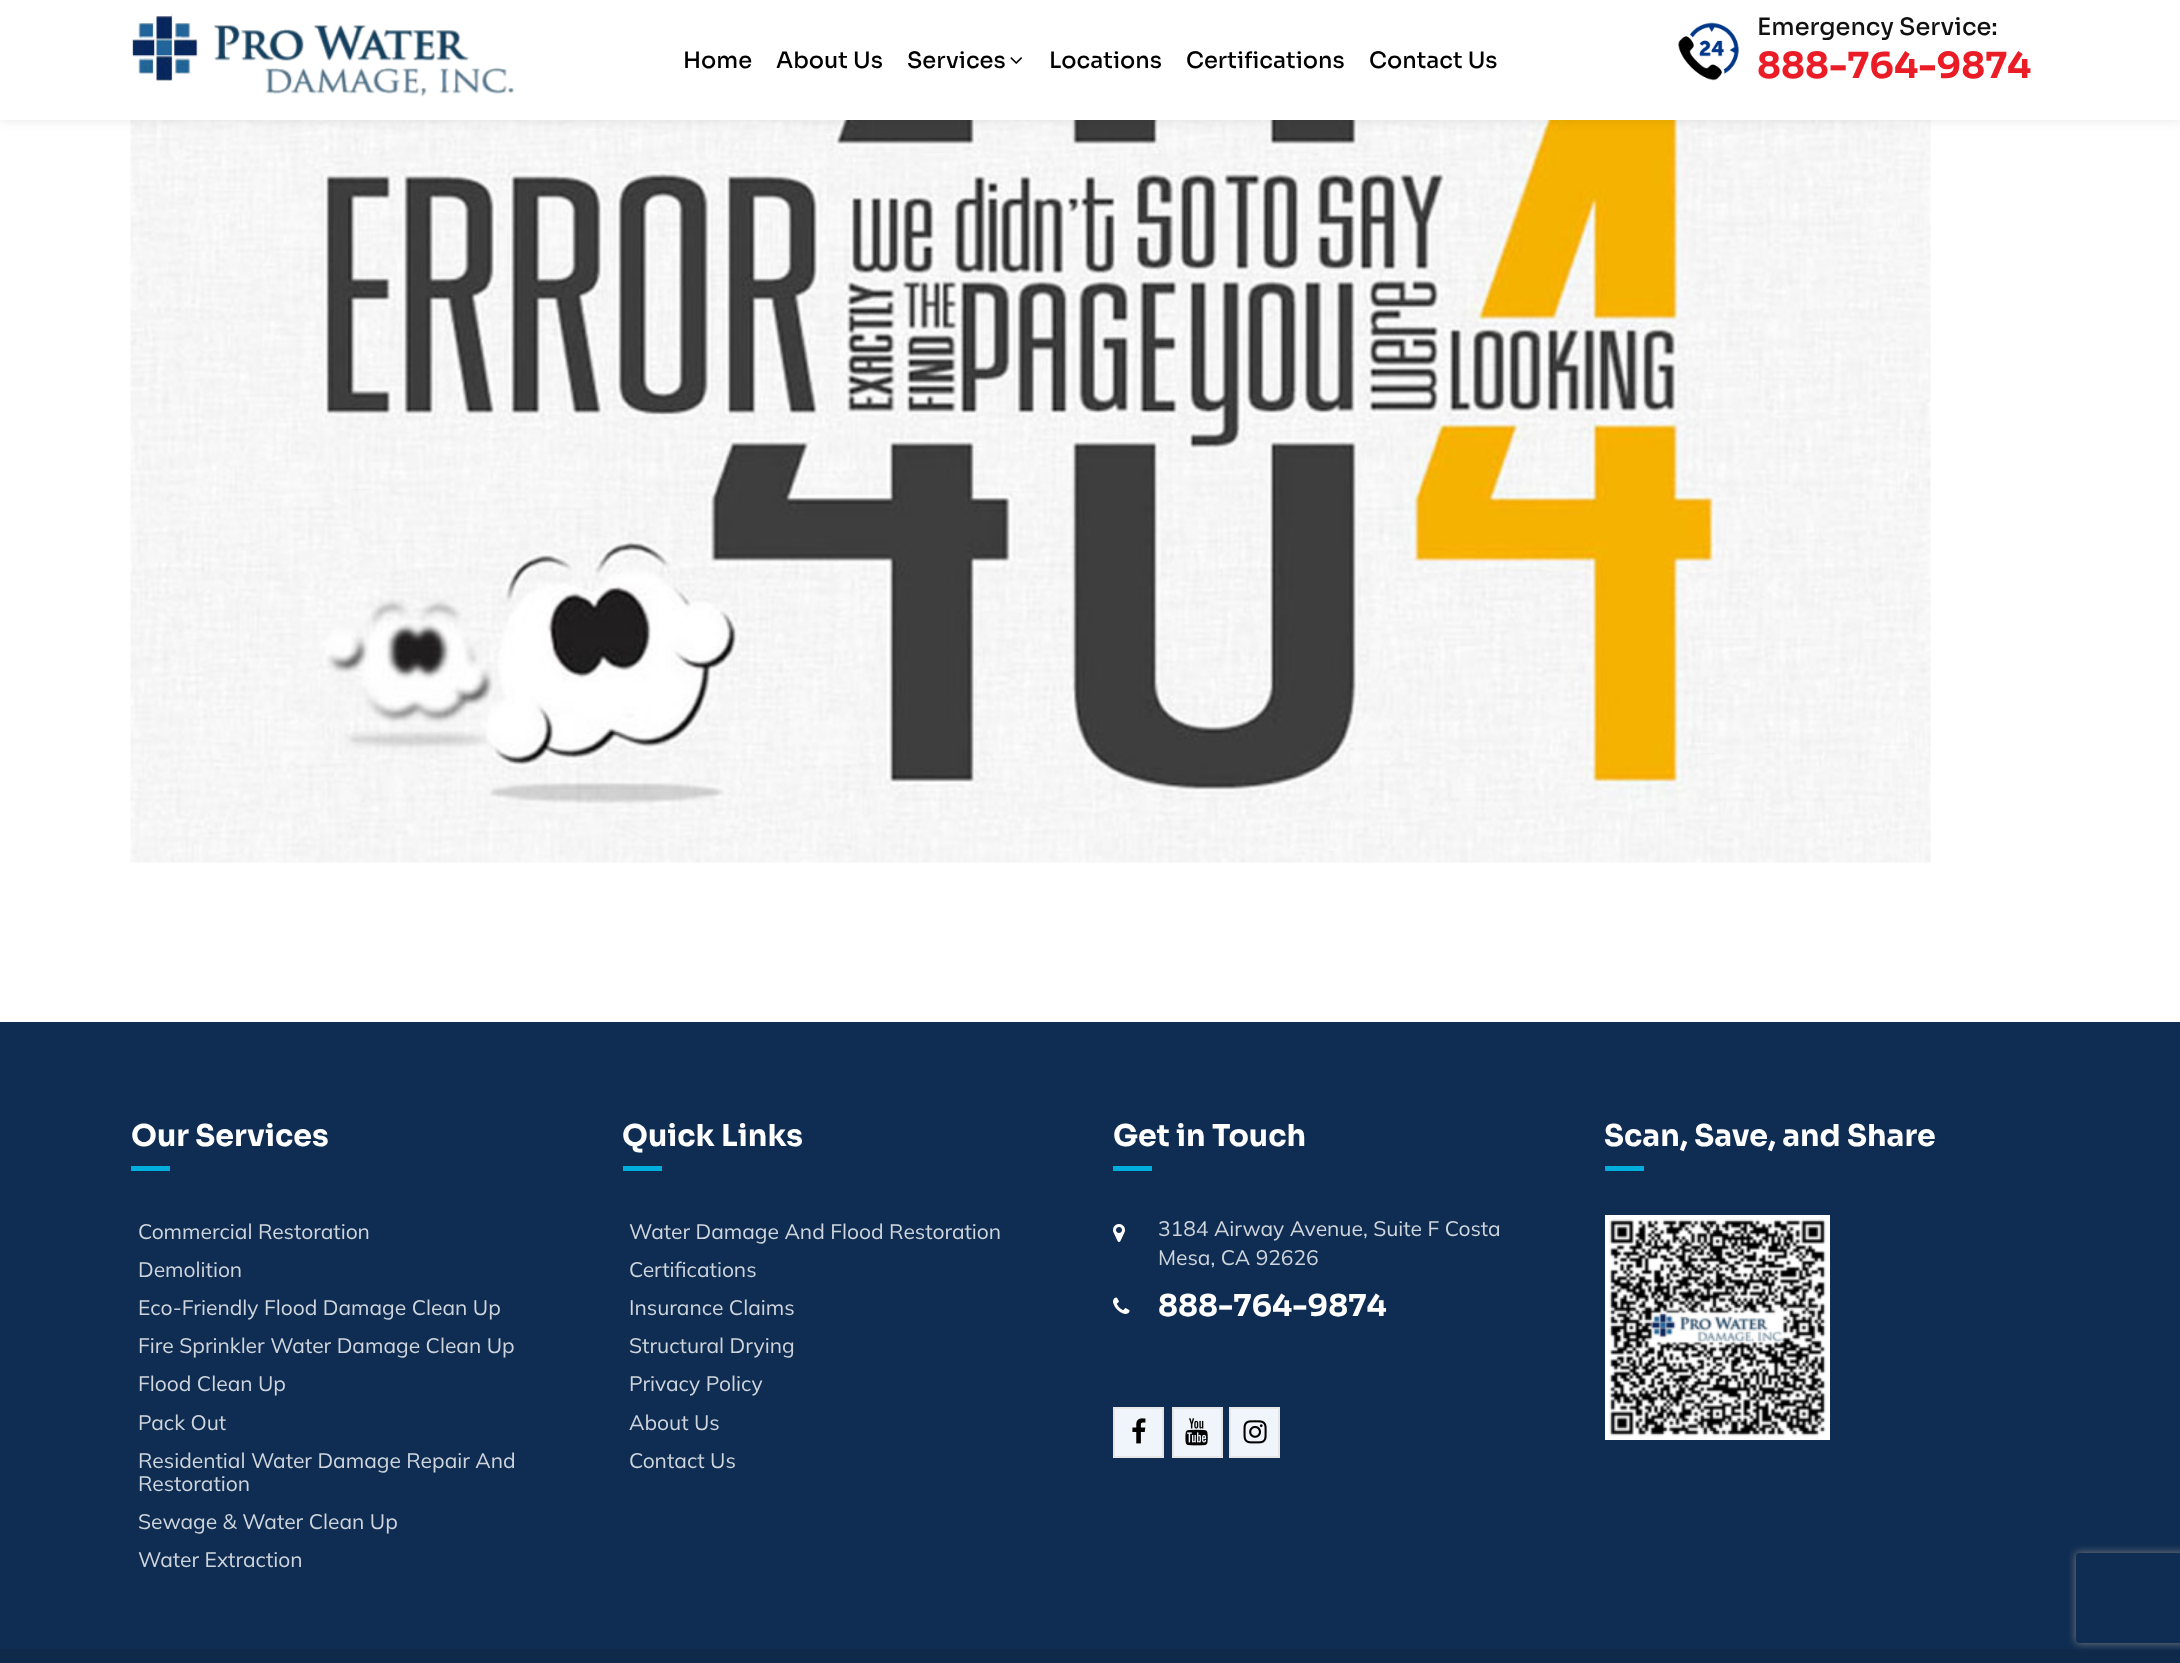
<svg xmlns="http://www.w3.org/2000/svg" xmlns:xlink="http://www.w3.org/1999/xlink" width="2180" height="1663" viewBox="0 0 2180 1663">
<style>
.cls-1{font:500 22.5px Sora;fill:#000000}
.cls-2{font:500 24px Sora;fill:#111111}
.cls-3{font:bold 36px Sora;fill:#ea1d26}
.cls-4{font:bold 30px Sora;fill:#ffffff}
.cls-5{font:21px Mulish;fill:#cfd5dc}
</style>
<defs>
<clipPath id="clip1"><path d="M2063 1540H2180V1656H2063ZM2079 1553H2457C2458.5 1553 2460 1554.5 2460 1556V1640C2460 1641.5 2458.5 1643 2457 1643H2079C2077.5 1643 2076 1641.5 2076 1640V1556C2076 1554.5 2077.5 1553 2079 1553Z" clip-rule="evenodd"/></clipPath>
</defs>
<rect width="100%" height="100%" fill="#ffffff"/>
<image xlink:href="image3.png" x="130" y="120" width="1801" height="743"/>
<rect fill="#000000" fill-opacity="0.1" filter="blur(6px)" x="0" y="0" width="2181" height="120"/>
<rect fill="#ffffff" x="0" y="0" width="2180" height="120"/>
<image xlink:href="image0.png" x="131" y="13" width="383" height="84"/>
<image xlink:href="image1.png" x="1010" y="57" width="12" height="7"/>
<image xlink:href="image2.png" x="1678" y="22" width="61" height="59"/>
<rect fill="#0f2d52" x="0" y="1022" width="2180" height="627"/>
<rect fill="#00aedd" x="131" y="1166" width="39" height="5"/>
<rect fill="#00aedd" x="623" y="1166" width="39" height="5"/>
<rect fill="#00aedd" x="1113" y="1166" width="39" height="5"/>
<image xlink:href="image4.png" x="1113" y="1224" width="12" height="18"/>
<image xlink:href="image5.png" x="1113" y="1297" width="17" height="17"/>
<rect fill="#f0f5fb" stroke="#e6e6e6" stroke-width="2" x="1114" y="1408" width="49" height="49"/>
<image xlink:href="image6.png" x="1132" y="1418" width="14" height="26"/>
<rect fill="#f0f5fb" stroke="#e6e6e6" stroke-width="2" x="1173" y="1408" width="49" height="49"/>
<image xlink:href="image7.png" x="1185" y="1418" width="23" height="28"/>
<rect fill="#f0f5fb" stroke="#e6e6e6" stroke-width="2" x="1230" y="1408" width="49" height="49"/>
<image xlink:href="image8.png" x="1243" y="1420" width="24" height="24"/>
<rect fill="#00aedd" x="1605" y="1166" width="39" height="5"/>
<image xlink:href="image9.png" x="1605" y="1215" width="225" height="225"/>
<rect fill="#0e294a" x="0" y="1649" width="2180" height="14"/>
<g clip-path="url(#clip1)">
<rect fill="#808080" filter="blur(4px)" x="2076" y="1553" width="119" height="90" rx="3"/>
</g>
<text class="cls-1" x="683" y="68">Home</text>
<text class="cls-1" x="776" y="68">About Us</text>
<text class="cls-1" x="907" y="68">Services</text>
<text class="cls-1" x="1049" y="68">Locations</text>
<text class="cls-1" x="1186" y="68">Certifications</text>
<text class="cls-1" x="1369" y="68">Contact Us</text>
<text class="cls-2" x="1757" y="35">Emergency Service:</text>
<text class="cls-3" x="1757" y="78">888-764-9874</text>
<text class="cls-4" x="131" y="1146">Our Services</text>
<text class="cls-5"><tspan x="138" y="1239">Commercial Restoration</tspan><tspan x="138" y="1277">Demolition</tspan><tspan x="138" y="1315">Eco-Friendly Flood Damage Clean Up</tspan><tspan x="138" y="1353">Fire Sprinkler Water Damage Clean Up</tspan><tspan x="138" y="1391">Flood Clean Up</tspan><tspan x="138" y="1430">Pack Out</tspan><tspan x="138" y="1468">Residential Water Damage Repair And</tspan><tspan x="138" y="1491">Restoration</tspan><tspan x="138" y="1529">Sewage &amp; Water Clean Up</tspan><tspan x="138" y="1567">Water Extraction</tspan></text>
<text class="cls-4" x="622" y="1146">Quick Links</text>
<text class="cls-5"><tspan x="629" y="1239">Water Damage And Flood Restoration</tspan><tspan x="629" y="1277">Certifications</tspan><tspan x="629" y="1315">Insurance Claims</tspan><tspan x="629" y="1353">Structural Drying</tspan><tspan x="629" y="1391">Privacy Policy</tspan><tspan x="629" y="1430">About Us</tspan><tspan x="629" y="1468">Contact Us</tspan></text>
<text class="cls-4" x="1113" y="1146">Get in Touch</text>
<text class="cls-5"><tspan x="1158" y="1236">3184 Airway Avenue, Suite F Costa</tspan><tspan x="1158" y="1265">Mesa, CA 92626</tspan></text>
<text class="cls-4" x="1158" y="1316">888-764-9874</text>
<text class="cls-4" x="1604" y="1146">Scan, Save, and Share</text>
</svg>
